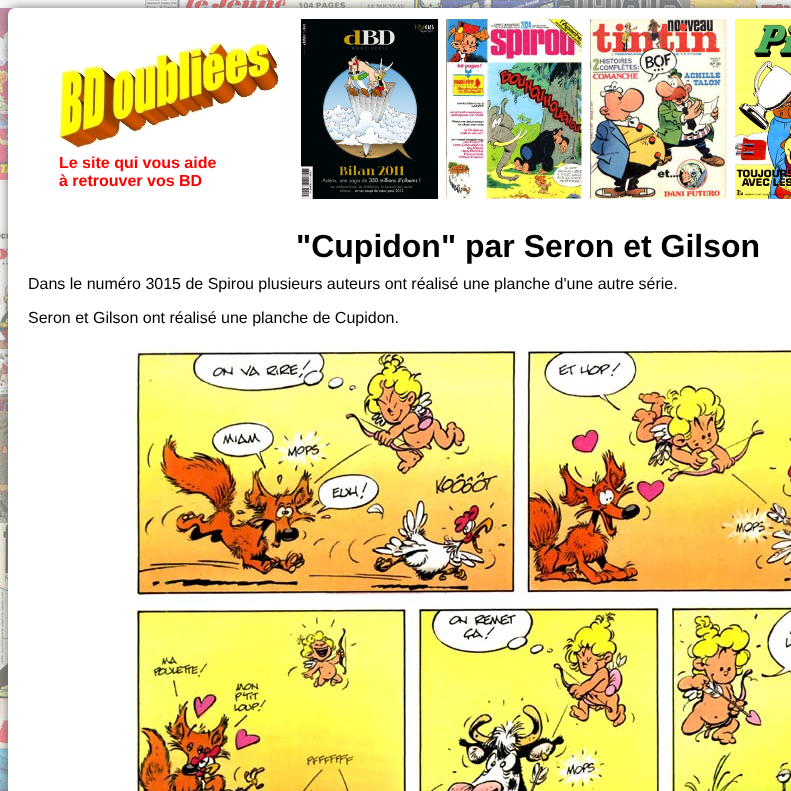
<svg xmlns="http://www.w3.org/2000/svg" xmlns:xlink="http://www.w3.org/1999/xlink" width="791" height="791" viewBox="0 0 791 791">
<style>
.cls-1{font:bold 16px Liberation Sans;fill:#ff0000}
.cls-2{font:bold 32px Liberation Sans;fill:#000000}
.cls-3{font:16px Liberation Sans;fill:#000000}
</style>
<rect width="100%" height="100%" fill="#ffffff"/>
<image xlink:href="image0.png" x="0" y="0" width="791" height="791"/>
<rect fill="#555555" filter="blur(6px)" x="9" y="9" width="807" height="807" rx="7"/>
<rect fill="#ffffff" x="8" y="8" width="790" height="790" rx="7"/>
<image xlink:href="image1.png" x="59" y="42" width="219" height="107"/>
<image xlink:href="image2.png" x="301" y="19" width="490" height="180"/>
<image xlink:href="image3.png" x="128" y="344" width="663" height="447"/>
<text class="cls-1"><tspan x="59" y="168">Le site qui vous aide</tspan><tspan x="59" y="186">à retrouver vos BD</tspan></text>
<text class="cls-2" x="296" y="257">"Cupidon" par Seron et Gilson</text>
<text class="cls-3" x="28" y="289">Dans le numéro 3015 de Spirou plusieurs auteurs ont réalisé une planche d'une autre série.</text>
<text class="cls-3" x="28" y="323">Seron et Gilson ont réalisé une planche de Cupidon.</text>
</svg>
